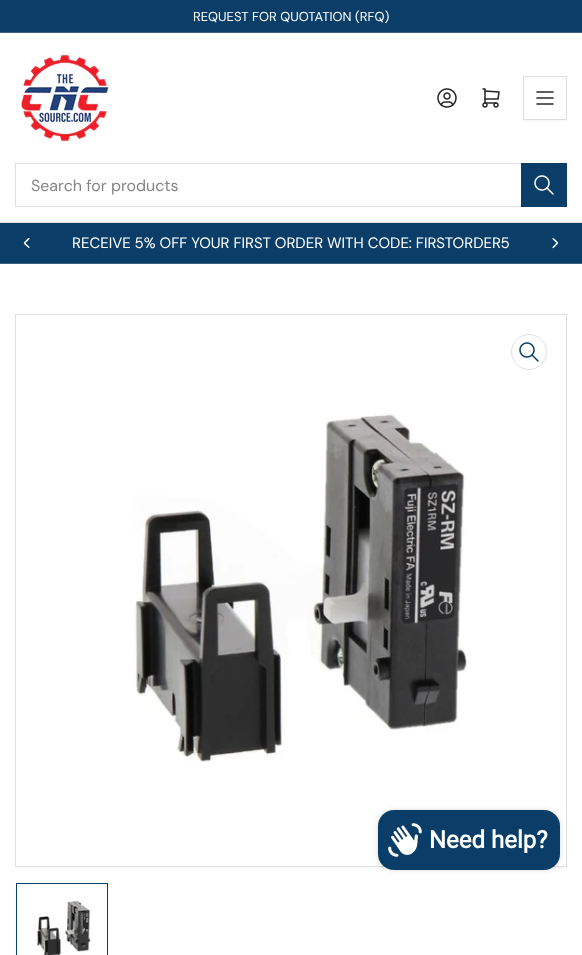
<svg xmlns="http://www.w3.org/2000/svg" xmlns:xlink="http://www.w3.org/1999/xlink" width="582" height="955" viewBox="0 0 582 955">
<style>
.cls-1{font:13px DM Sans;fill:#ffffff}
.cls-2{font:16px 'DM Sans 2';fill:#858585}
.cls-3{font:15px 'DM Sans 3';fill:#ffffff}
.cls-4{font:bold 24px Roboto;fill:#ffffff}
</style>
<rect width="100%" height="100%" fill="#ffffff"/>
<rect fill="#0a3e68" x="0" y="0" width="582" height="32"/>
<rect fill="#3b6586" x="0" y="32" width="582" height="1"/>
<rect fill="#dfdfdf" x="0" y="222" width="582" height="1"/>
<image xlink:href="image0.png" x="21" y="55" width="88" height="86"/>
<image xlink:href="image1.png" x="437" y="88" width="20" height="20"/>
<image xlink:href="image2.png" x="482" y="88" width="18" height="20"/>
<rect fill="#f9f9f9" x="523" y="120" width="44" height="2"/>
<rect fill="none" stroke="#dfdfdf" x="523.5" y="76.5" width="43" height="43"/>
<image xlink:href="image3.png" x="536" y="91" width="18" height="14"/>
<rect fill="none" stroke="#dfdfdf" x="15.5" y="163.5" width="551" height="43"/>
<rect fill="none" stroke="#0a3e68" x="521.5" y="163.5" width="45" height="43"/>
<rect fill="#0a3e68" x="522" y="164" width="44" height="42"/>
<image xlink:href="image4.png" x="534" y="175" width="20" height="20"/>
<rect fill="#0a3e68" x="0" y="223" width="582" height="40"/>
<rect fill="#3b6586" x="0" y="263" width="582" height="1"/>
<path fill="#ffffff" d="M29.5 239L26 242.5C24 244.5 23 243.5 25 241.5C25.5 241 28.5 237 29.5 238Z"/>
<path fill="#ffffff" d="M25 242.5L28.5 246C30.5 248 29.5 249 27.5 247C27 246.5 23 243.5 24 242.5Z"/>
<path fill="#ffffff" d="M552.5 247L556 243.5C558 241.5 559 242.5 557 244.5C556.5 245 553.5 249 552.5 248Z"/>
<path fill="#ffffff" d="M557 243.5L553.5 240C551.5 238 552.5 237 554.5 239C555 239.5 559 242.5 558 243.5Z"/>
<rect fill="#f9f9f9" x="15" y="867" width="552" height="2"/>
<rect fill="none" stroke="#dfdfdf" x="15.5" y="314.5" width="551" height="552"/>
<circle fill="none" stroke="#dfdfdf" cx="529" cy="352" r="17.5"/>
<image xlink:href="image5.png" x="519" y="342" width="20" height="20"/>
<image xlink:href="image6.png" x="134" y="412" width="333" height="350"/>
<rect fill="none" stroke="#0a3e68" x="16.5" y="883.5" width="91" height="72"/>
<image xlink:href="image7.png" x="36" y="900" width="56" height="55"/>
<rect fill="#000000" fill-opacity="0.15" filter="blur(2.5px)" x="378" y="810" width="182" height="60" rx="16"/>
<rect fill="#0a3e68" x="378" y="810" width="182" height="60" rx="16"/>
<image xlink:href="image8.png" x="388" y="823" width="34" height="34"/>
<text class="cls-1" x="193" y="21">REQUEST FOR QUOTATION (RFQ)</text>
<text class="cls-2" x="31" y="191">Search for products</text>
<text class="cls-3" x="72" y="248">RECEIVE 5% OFF YOUR FIRST ORDER WITH CODE: FIRSTORDER5</text>
<text class="cls-4" x="429" y="848">Need help?</text>
</svg>
